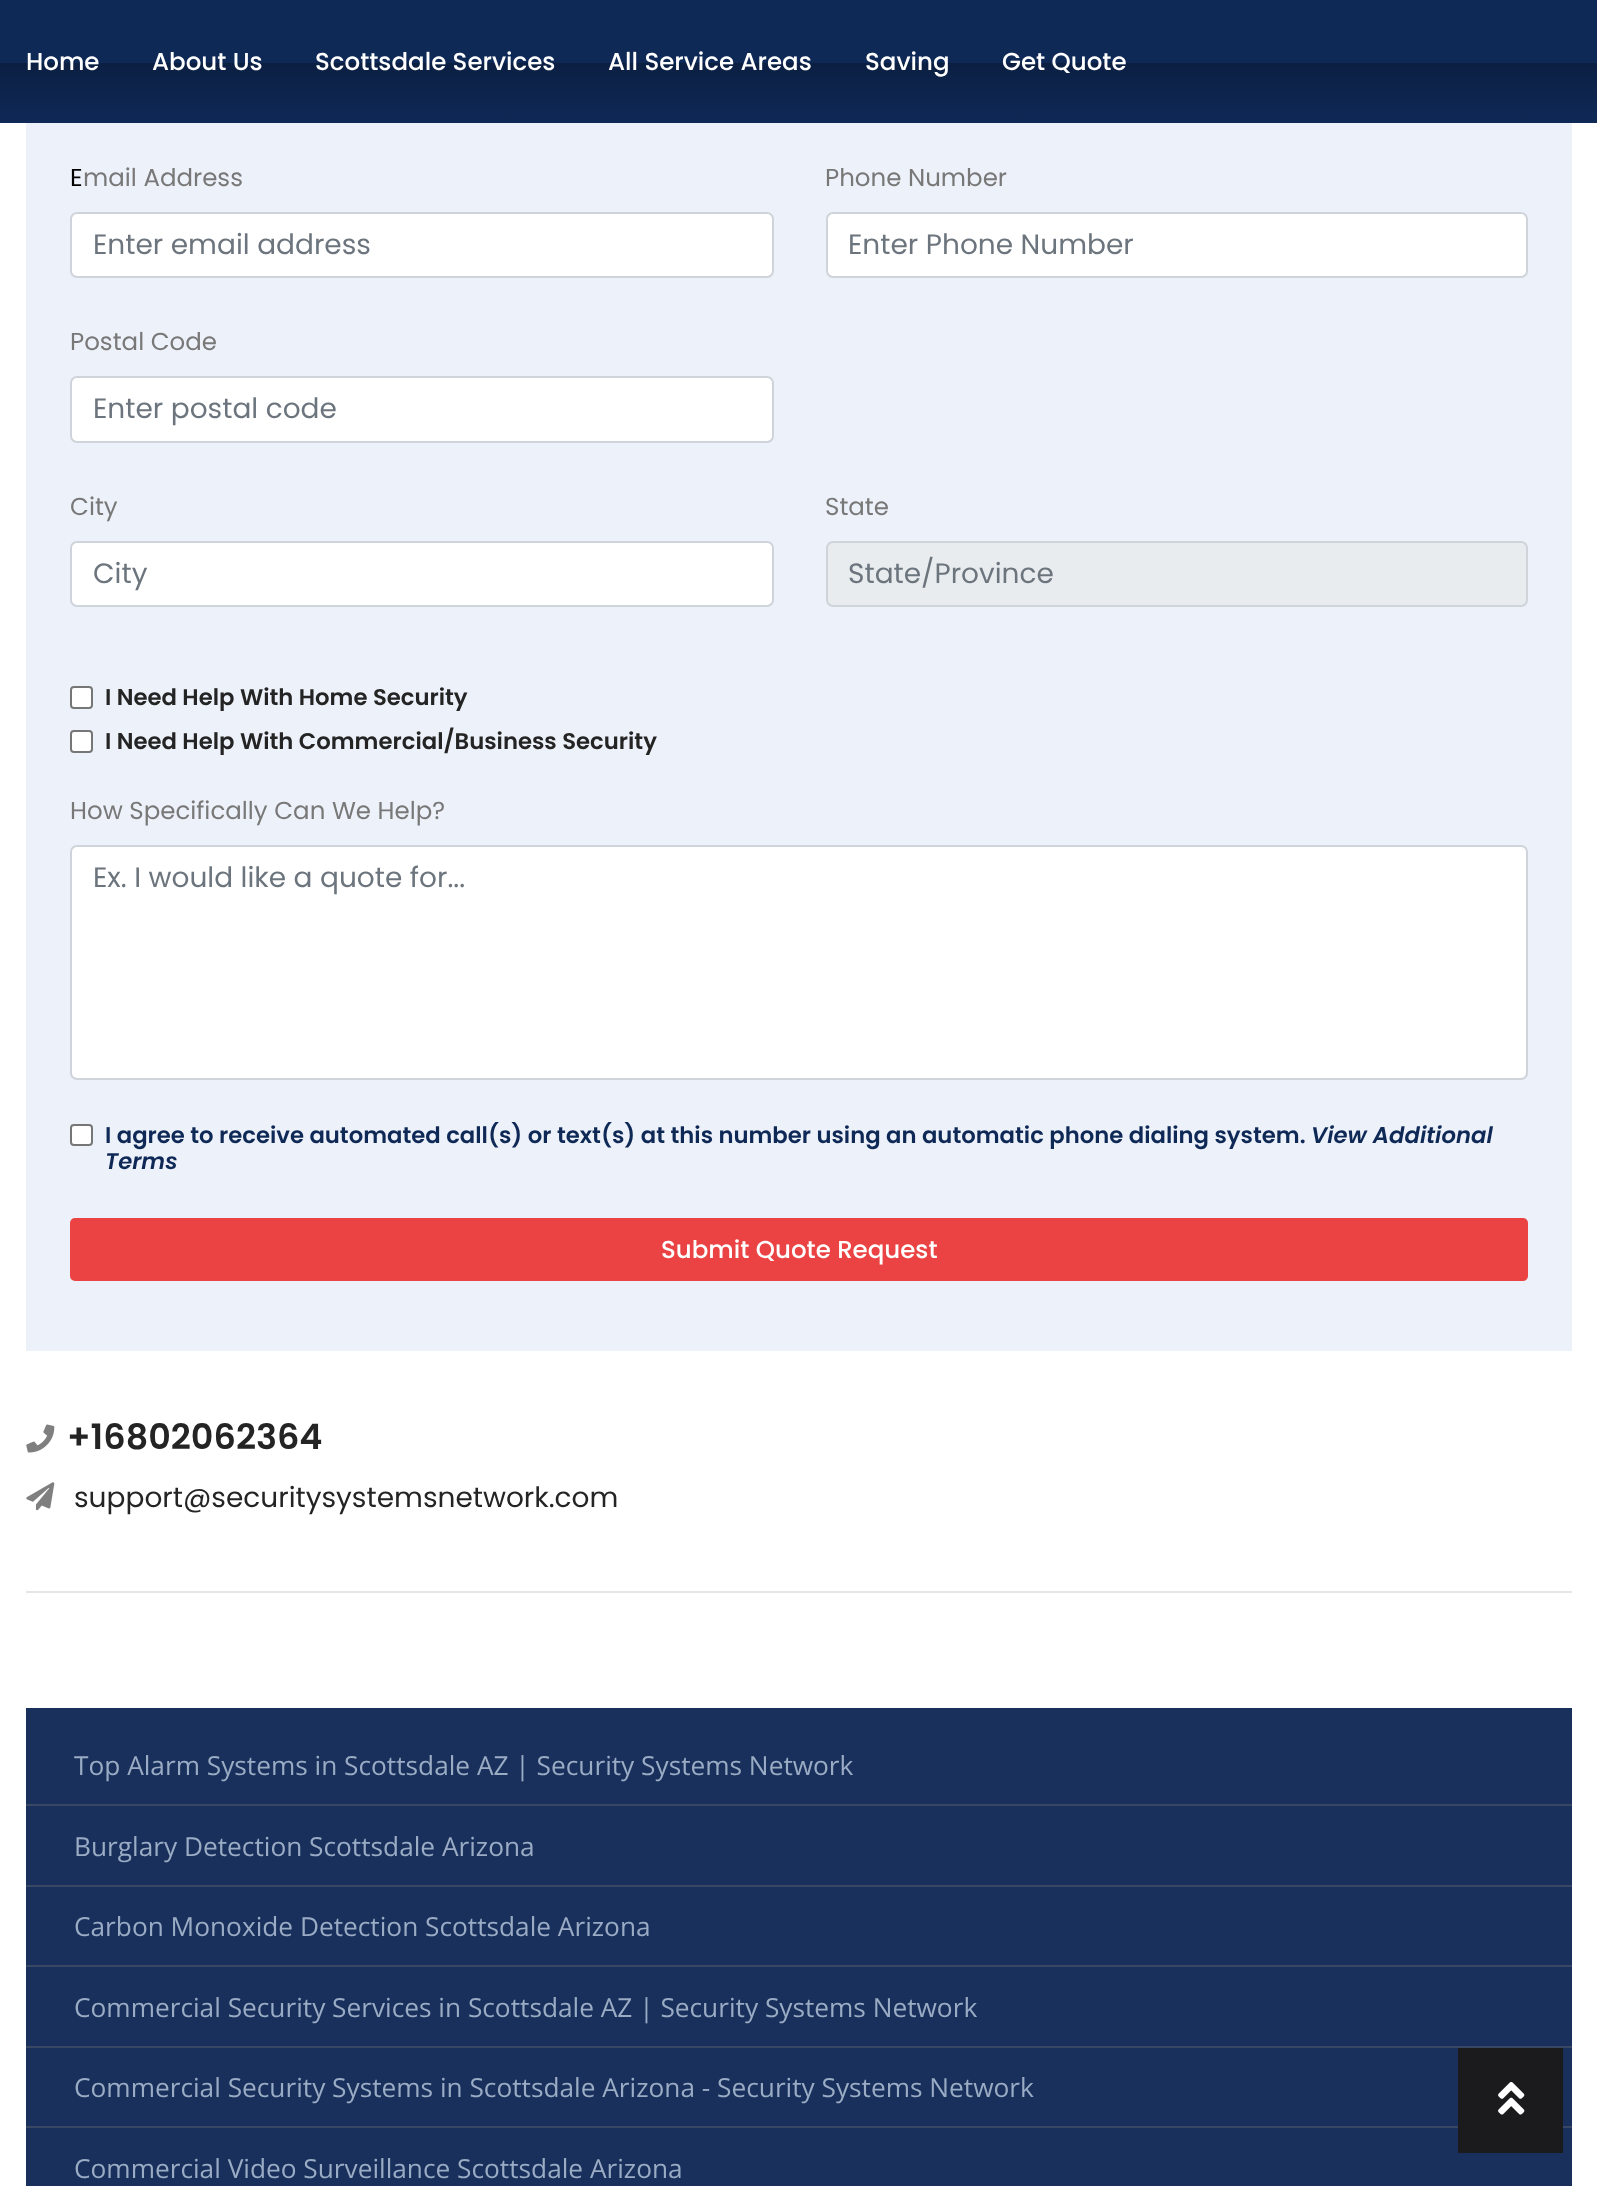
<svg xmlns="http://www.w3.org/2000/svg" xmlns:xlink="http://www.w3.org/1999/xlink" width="1597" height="2186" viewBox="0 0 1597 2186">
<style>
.cls-1{font:500 24.5px Poppins;fill:#ffffff}
.cls-2{font:24.5px Poppins;fill:#000000}
.cls-3{font:24.5px Poppins;fill:#787878}
.cls-4{font:28px Poppins;fill:#6c757d}
.cls-5{font:600 22.75px Poppins;fill:#242424}
.cls-6{font:600 22.75px Poppins;fill:#0f2957}
.cls-7{font:italic 600 22.75px Poppins;fill:#0f2957}
.cls-8{font:600 35px Poppins;fill:#242424}
.cls-9{font:28px Poppins;fill:#242424}
.cls-10{font:26.25px Open Sans;fill:#9aabc4}
</style>
<defs>
<linearGradient id="g1" gradientUnits="userSpaceOnUse" x1="799" y1="0" x2="799" y2="123"><stop offset="0.51" stop-color="#0f2957"/><stop offset="0.51" stop-color="#0b1f42"/><stop offset="1" stop-color="#0f2957"/></linearGradient>
</defs>
<rect width="100%" height="100%" fill="#ffffff"/>
<rect fill="url(#g1)" x="0" y="0" width="1597" height="123"/>
<rect fill="#edf1f9" x="26" y="123" width="1546" height="1228"/>
<rect fill="#ffffff" stroke="#ced4da" stroke-width="2" x="71" y="213" width="702" height="64" rx="6"/>
<rect fill="#ffffff" stroke="#ced4da" stroke-width="2" x="827" y="213" width="700" height="64" rx="6"/>
<rect fill="#ffffff" stroke="#ced4da" stroke-width="2" x="71" y="377" width="702" height="65" rx="6"/>
<rect fill="#ffffff" stroke="#ced4da" stroke-width="2" x="71" y="542" width="702" height="64" rx="6"/>
<rect fill="#e9ecef" stroke="#ced4da" stroke-width="2" x="827" y="542" width="700" height="64" rx="6"/>
<rect fill="#ffffff" stroke="#767676" stroke-width="2" x="71" y="687" width="21" height="21" rx="3"/>
<rect fill="#ffffff" stroke="#767676" stroke-width="2" x="71" y="731" width="21" height="21" rx="3"/>
<rect fill="#ffffff" stroke="#ced4da" stroke-width="2" x="71" y="846" width="1456" height="233" rx="6"/>
<rect fill="#ffffff" stroke="#767676" stroke-width="2" x="71" y="1125" width="21" height="20" rx="3"/>
<rect fill="#eb4343" x="70" y="1218" width="1458" height="63" rx="5"/>
<image xlink:href="image0.png" x="26" y="1424" width="29" height="29"/>
<image xlink:href="image1.png" x="26" y="1482" width="29" height="29"/>
<rect fill="#e6e6e6" x="26" y="1591" width="1546" height="2"/>
<rect fill="#18305b" x="26" y="1708" width="1546" height="478"/>
<rect fill="#384864" x="26" y="1804" width="1546" height="2"/>
<rect fill="#384864" x="26" y="1885" width="1546" height="2"/>
<rect fill="#384864" x="26" y="1965" width="1546" height="2"/>
<rect fill="#384864" x="26" y="2046" width="1546" height="2"/>
<rect fill="#384864" x="26" y="2126" width="1546" height="2"/>
<rect fill="#1b1a1c" x="1458" y="2048" width="105" height="105"/>
<image xlink:href="image2.png" x="1498" y="2081" width="27" height="34"/>
<text class="cls-1" x="26" y="70">Home</text>
<text class="cls-1" x="152" y="70">About Us</text>
<text class="cls-1" x="315" y="70">Scottsdale Services</text>
<text class="cls-1" x="608" y="70">All Service Areas</text>
<text class="cls-1" x="865" y="70">Saving</text>
<text class="cls-1" x="1002" y="70">Get Quote</text>
<text class="cls-2" x="70" y="186">E</text>
<text class="cls-3" x="83" y="186">mail Address</text>
<text class="cls-4" x="93" y="254">Enter email address</text>
<text class="cls-3" x="825" y="186">Phone Number</text>
<text class="cls-4" x="848" y="254">Enter Phone Number</text>
<text class="cls-3" x="70" y="350">Postal Code</text>
<text class="cls-4" x="93" y="418">Enter postal code</text>
<text class="cls-3" x="70" y="515">City</text>
<text class="cls-4" x="93" y="583">City</text>
<text class="cls-3" x="825" y="515">State</text>
<text class="cls-4" x="848" y="583">State/Province</text>
<text class="cls-5"><tspan x="105" y="705">I Need Help With Home Security</tspan><tspan x="105" y="749">I Need Help With Commercial/Business Security</tspan></text>
<text class="cls-3" x="70" y="819">How Specifically Can We Help?</text>
<text class="cls-4" x="93" y="887">Ex. I would like a quote for...</text>
<text class="cls-6" x="105" y="1143">I agree to receive automated call(s) or text(s) at this number using an automatic phone dialing system.</text>
<text class="cls-7" x="1311" y="1143">View Additional</text>
<text class="cls-7" x="105" y="1169">Terms</text>
<text class="cls-1" x="661" y="1258">Submit Quote Request</text>
<text class="cls-8" x="67" y="1449">+16802062364</text>
<text class="cls-9" x="74" y="1507">support@securitysystemsnetwork.com</text>
<text class="cls-10" x="74" y="1775">Top Alarm Systems in Scottsdale AZ | Security Systems Network</text>
<text class="cls-10" x="74" y="1856">Burglary Detection Scottsdale Arizona</text>
<text class="cls-10" x="74" y="1936">Carbon Monoxide Detection Scottsdale Arizona</text>
<text class="cls-10" x="74" y="2017">Commercial Security Services in Scottsdale AZ | Security Systems Network</text>
<text class="cls-10" x="74" y="2097">Commercial Security Systems in Scottsdale Arizona - Security Systems Network</text>
<text class="cls-10" x="74" y="2178">Commercial Video Surveillance Scottsdale Arizona</text>
</svg>
